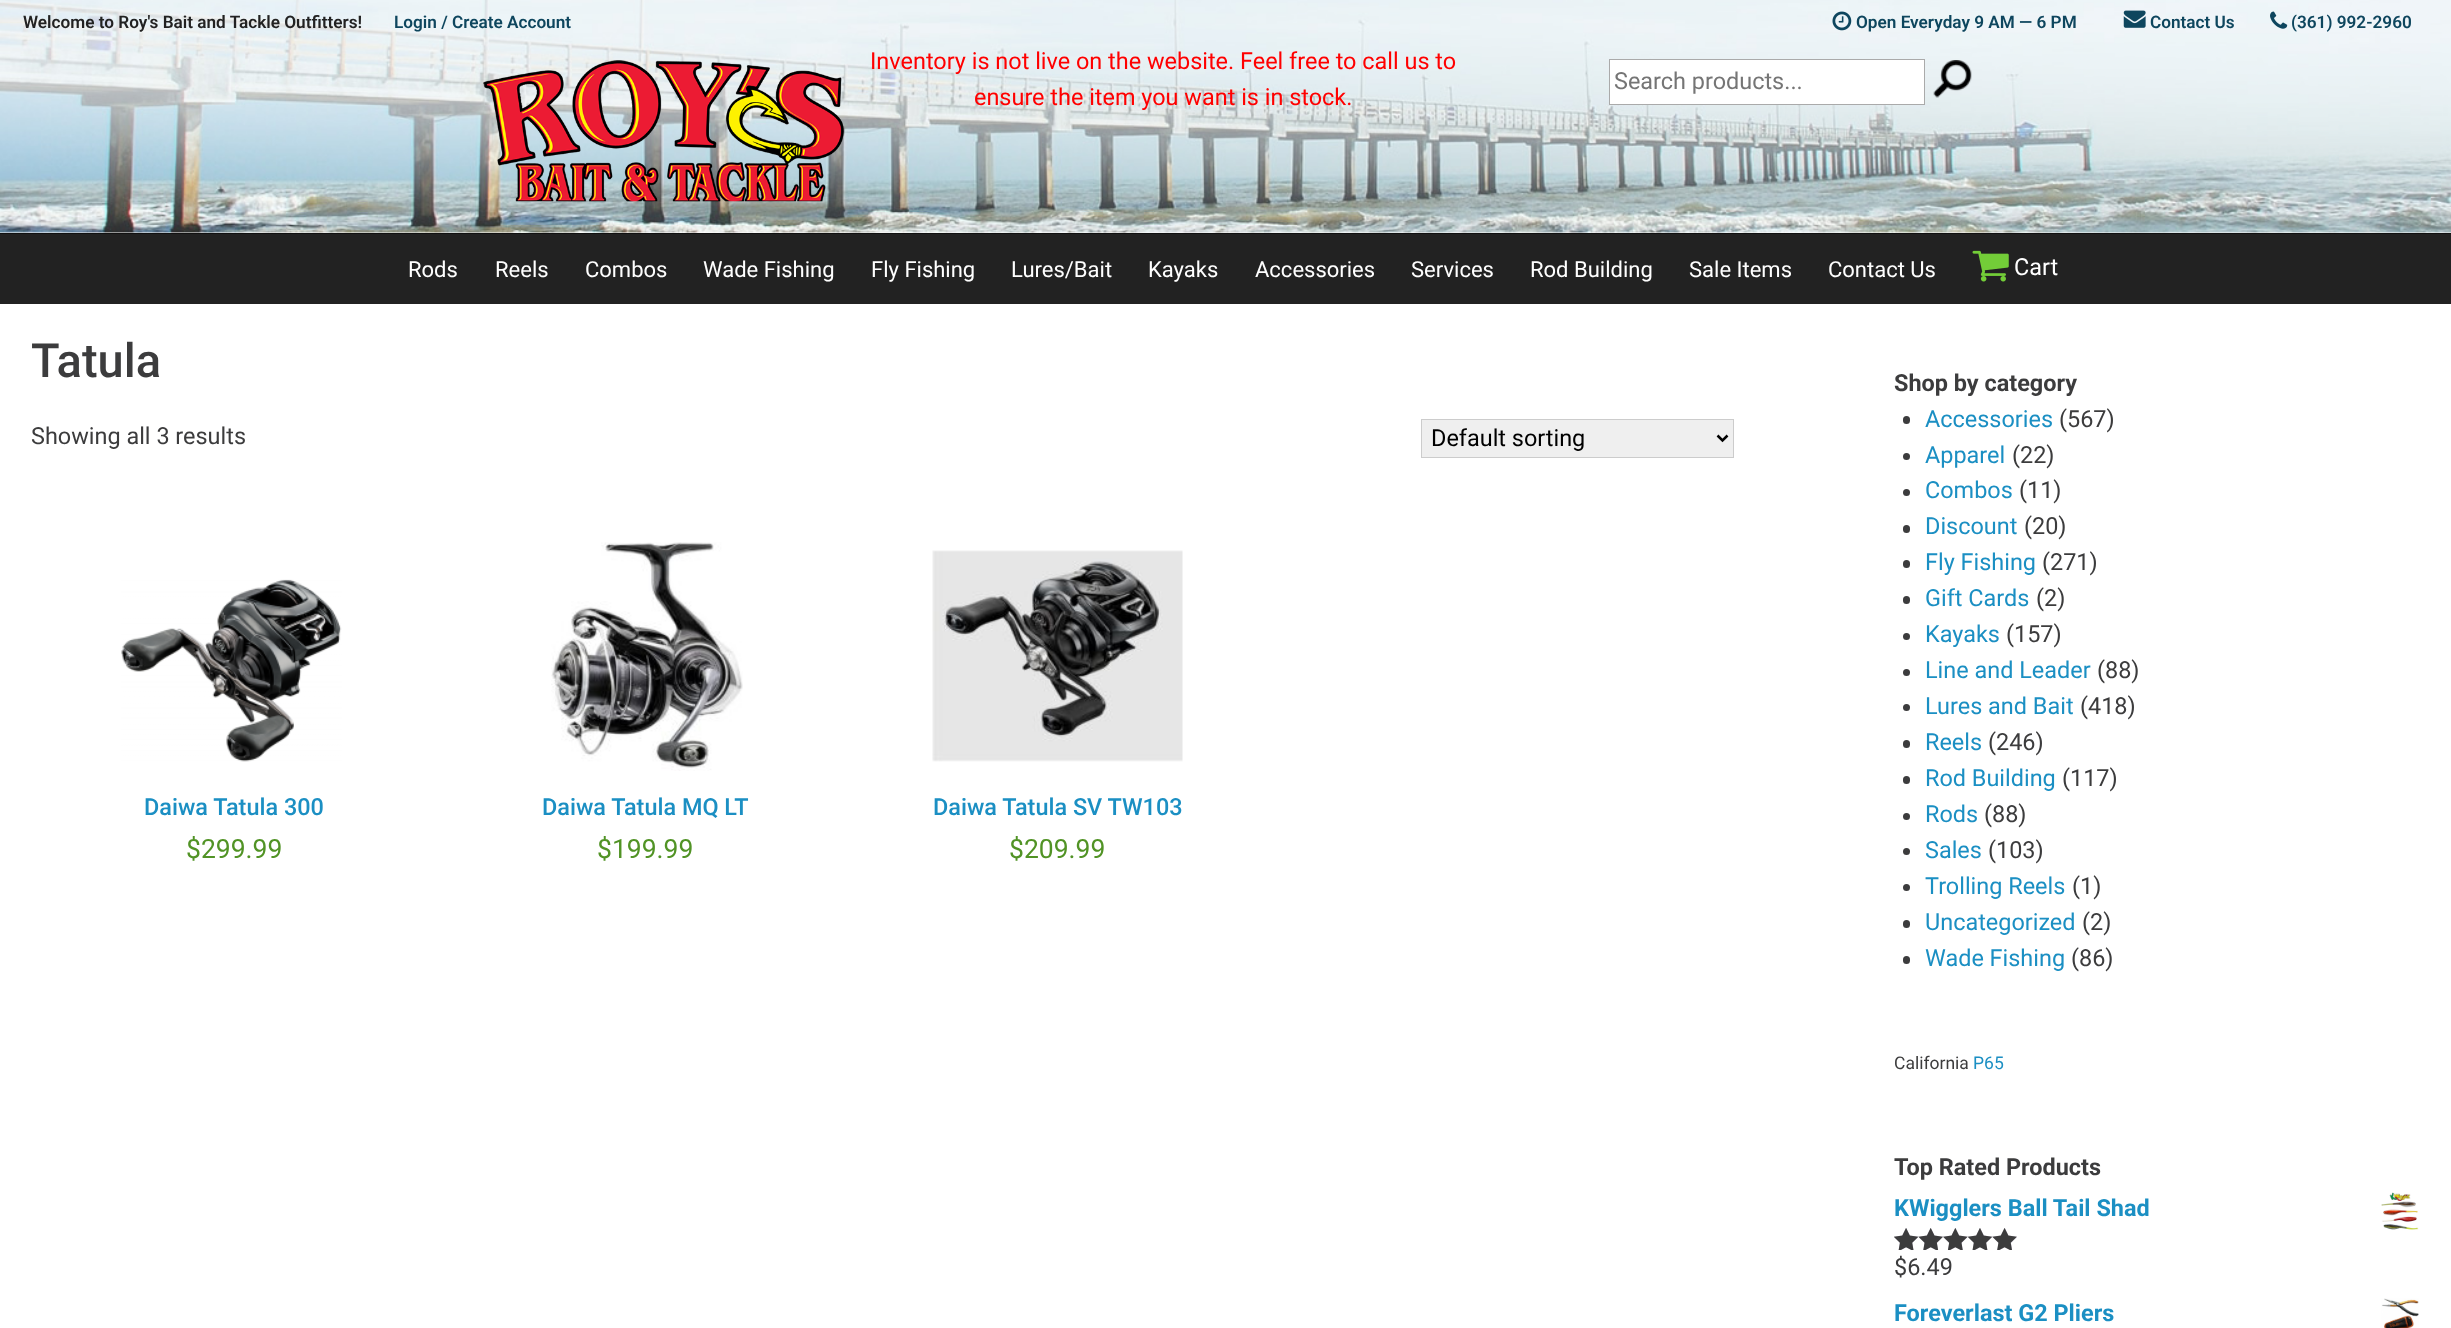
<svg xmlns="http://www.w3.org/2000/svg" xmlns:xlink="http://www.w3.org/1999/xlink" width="2451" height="1328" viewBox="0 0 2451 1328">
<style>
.cls-1{font:600 17.2px Roboto;fill:#222222}
.cls-2{font:600 17.2px Roboto;fill:#0e465e}
.cls-3{font:23.45px Roboto;fill:#ff0000}
.cls-4{font:23.45px Roboto;fill:#757575}
.cls-5{font:22px Roboto;fill:#ffffff}
.cls-6{font:23.45px Roboto;fill:#ffffff}
.cls-7{font:500 47px Roboto;fill:#3c3c3d}
.cls-8{font:23.45px Roboto;fill:#3c3c3d}
.cls-9{font:23.45px Roboto;fill:#000000}
.cls-10{font:500 23.45px Roboto;fill:#1b8fc3}
.cls-11{font:26.5px Roboto;fill:#519325}
.cls-12{font:bold 23.45px Roboto;fill:#3c3c3d}
.cls-13{font:23.45px Roboto;fill:#1b8fc3}
.cls-14{font:17.5px Roboto;fill:#3c3c3d}
.cls-15{font:17.5px Roboto;fill:#1b8fc3}
.cls-16{font:bold 23.45px Roboto;fill:#1b8fc3}
</style>
<rect width="100%" height="100%" fill="#ffffff"/>
<image xlink:href="image0.png" x="0" y="0" width="2451" height="233"/>
<image xlink:href="image1.png" x="1832" y="11" width="20" height="20"/>
<image xlink:href="image2.png" x="2123" y="10" width="23" height="18"/>
<image xlink:href="image3.png" x="2270" y="11" width="18" height="18"/>
<image xlink:href="image4.png" x="483" y="60" width="362" height="142"/>
<rect fill="#ffffff" stroke="#aaaaaa" x="1609.5" y="59.5" width="315" height="45"/>
<image xlink:href="image5.png" x="1933" y="60" width="39" height="38"/>
<rect fill="#222222" x="0" y="234" width="2451" height="70"/>
<rect fill="#111111" x="0" y="233" width="2451" height="1"/>
<image xlink:href="image6.png" x="1972" y="250" width="37" height="32"/>
<rect fill="#efefef" stroke="#cccccc" x="1421.5" y="419.5" width="312" height="38"/>
<path fill="none" stroke="#000000" stroke-width="2.5" d="M1717.5 435.5L1722.5 440.5L1727.5 435.5"/>
<image xlink:href="image7.png" x="121" y="579" width="221" height="183"/>
<image xlink:href="image8.png" x="551" y="542" width="192" height="229"/>
<image xlink:href="image9.png" x="932" y="550" width="251" height="212"/>
<rect fill="#3c3c3d" x="1903" y="416" width="7" height="8" rx="3.5"/>
<circle fill="#3c3c3d" cx="1906.5" cy="456.5" r="3.5"/>
<circle fill="#3c3c3d" cx="1906.5" cy="492.5" r="3.5"/>
<rect fill="#3c3c3d" x="1903" y="525" width="7" height="8" rx="3.5"/>
<rect fill="#3c3c3d" x="1903" y="560" width="7" height="8" rx="3.5"/>
<rect fill="#3c3c3d" x="1903" y="596" width="7" height="8" rx="3.5"/>
<circle fill="#3c3c3d" cx="1906.5" cy="636.5" r="3.5"/>
<circle fill="#3c3c3d" cx="1906.5" cy="672.5" r="3.5"/>
<circle fill="#3c3c3d" cx="1906.5" cy="707.5" r="3.5"/>
<rect fill="#3c3c3d" x="1903" y="740" width="7" height="8" rx="3.5"/>
<rect fill="#3c3c3d" x="1903" y="776" width="7" height="8" rx="3.5"/>
<circle fill="#3c3c3d" cx="1906.5" cy="816.5" r="3.5"/>
<circle fill="#3c3c3d" cx="1906.5" cy="851.5" r="3.5"/>
<circle fill="#3c3c3d" cx="1906.5" cy="887.5" r="3.5"/>
<rect fill="#3c3c3d" x="1903" y="920" width="7" height="8" rx="3.5"/>
<rect fill="#3c3c3d" x="1903" y="956" width="7" height="8" rx="3.5"/>
<image xlink:href="image10.png" x="2381" y="1192" width="38" height="38"/>
<image xlink:href="image11.png" x="1894" y="1228" width="123" height="22"/>
<image xlink:href="image12.png" x="1894" y="1228" width="123" height="22"/>
<image xlink:href="image13.png" x="2381" y="1298" width="38" height="30"/>
<text class="cls-1" x="23" y="28">Welcome to Roy's Bait and Tackle Outfitters!</text>
<text class="cls-2" x="394" y="28">Login / Create Account</text>
<text class="cls-2" x="1856" y="28">Open Everyday 9 AM — 6 PM</text>
<text class="cls-2" x="2150" y="28">Contact Us</text>
<text class="cls-2" x="2291" y="28">(361) 992-2960</text>
<text class="cls-3" x="870" y="69">Inventory is not live on the website. Feel free to call us to</text>
<text class="cls-3" x="974" y="105">ensure the item you want is in stock.</text>
<text class="cls-4" x="1614" y="89">Search products...</text>
<text class="cls-5" x="408" y="277">Rods</text>
<text class="cls-5" x="495" y="277">Reels</text>
<text class="cls-5" x="585" y="277">Combos</text>
<text class="cls-5" x="703" y="277">Wade Fishing</text>
<text class="cls-5" x="871" y="277">Fly Fishing</text>
<text class="cls-5" x="1011" y="277">Lures/Bait</text>
<text class="cls-5" x="1148" y="277">Kayaks</text>
<text class="cls-5" x="1255" y="277">Accessories</text>
<text class="cls-5" x="1411" y="277">Services</text>
<text class="cls-5" x="1530" y="277">Rod Building</text>
<text class="cls-5" x="1689" y="277">Sale Items</text>
<text class="cls-5" x="1828" y="277">Contact Us</text>
<text class="cls-6" x="2014" y="275">Cart</text>
<text class="cls-7" x="31" y="377">Tatula</text>
<text class="cls-8" x="31" y="444">Showing all 3 results</text>
<text class="cls-9" x="1431" y="446">Default sorting</text>
<text class="cls-10" x="144" y="815">Daiwa Tatula 300</text>
<text class="cls-11" x="186" y="858">$299.99</text>
<text class="cls-10" x="542" y="815">Daiwa Tatula MQ LT</text>
<text class="cls-11" x="597" y="858">$199.99</text>
<text class="cls-10" x="933" y="815">Daiwa Tatula SV TW103</text>
<text class="cls-11" x="1009" y="858">$209.99</text>
<text class="cls-12" x="1894" y="391">Shop by category</text>
<text class="cls-13" x="1925" y="427">Accessories</text>
<text class="cls-8" x="2059" y="427">(567)</text>
<text class="cls-13" x="1925" y="463">Apparel</text>
<text class="cls-8" x="2012" y="463">(22)</text>
<text class="cls-13" x="1925" y="498">Combos</text>
<text class="cls-8" x="2019" y="498">(11)</text>
<text class="cls-13" x="1925" y="534">Discount</text>
<text class="cls-8" x="2024" y="534">(20)</text>
<text class="cls-13" x="1925" y="570">Fly Fishing</text>
<text class="cls-8" x="2042" y="570">(271)</text>
<text class="cls-13" x="1925" y="606">Gift Cards</text>
<text class="cls-8" x="2036" y="606">(2)</text>
<text class="cls-13" x="1925" y="642">Kayaks</text>
<text class="cls-8" x="2006" y="642">(157)</text>
<text class="cls-13" x="1925" y="678">Line and Leader</text>
<text class="cls-8" x="2097" y="678">(88)</text>
<text class="cls-13" x="1925" y="714">Lures and Bait</text>
<text class="cls-8" x="2080" y="714">(418)</text>
<text class="cls-13" x="1925" y="750">Reels</text>
<text class="cls-8" x="1988" y="750">(246)</text>
<text class="cls-13" x="1925" y="786">Rod Building</text>
<text class="cls-8" x="2062" y="786">(117)</text>
<text class="cls-13" x="1925" y="822">Rods</text>
<text class="cls-8" x="1984" y="822">(88)</text>
<text class="cls-13" x="1925" y="858">Sales</text>
<text class="cls-8" x="1988" y="858">(103)</text>
<text class="cls-13" x="1925" y="894">Trolling Reels</text>
<text class="cls-8" x="2072" y="894">(1)</text>
<text class="cls-13" x="1925" y="930">Uncategorized</text>
<text class="cls-8" x="2082" y="930">(2)</text>
<text class="cls-13" x="1925" y="966">Wade Fishing</text>
<text class="cls-8" x="2071" y="966">(86)</text>
<text class="cls-14" x="1894" y="1069">California</text>
<text class="cls-15" x="1973" y="1069">P65</text>
<text class="cls-12" x="1894" y="1175">Top Rated Products</text>
<text class="cls-16" x="1894" y="1216">KWigglers Ball Tail Shad</text>
<text class="cls-8" x="1894" y="1275">$6.49</text>
<text class="cls-16" x="1894" y="1321">Foreverlast G2 Pliers</text>
</svg>
